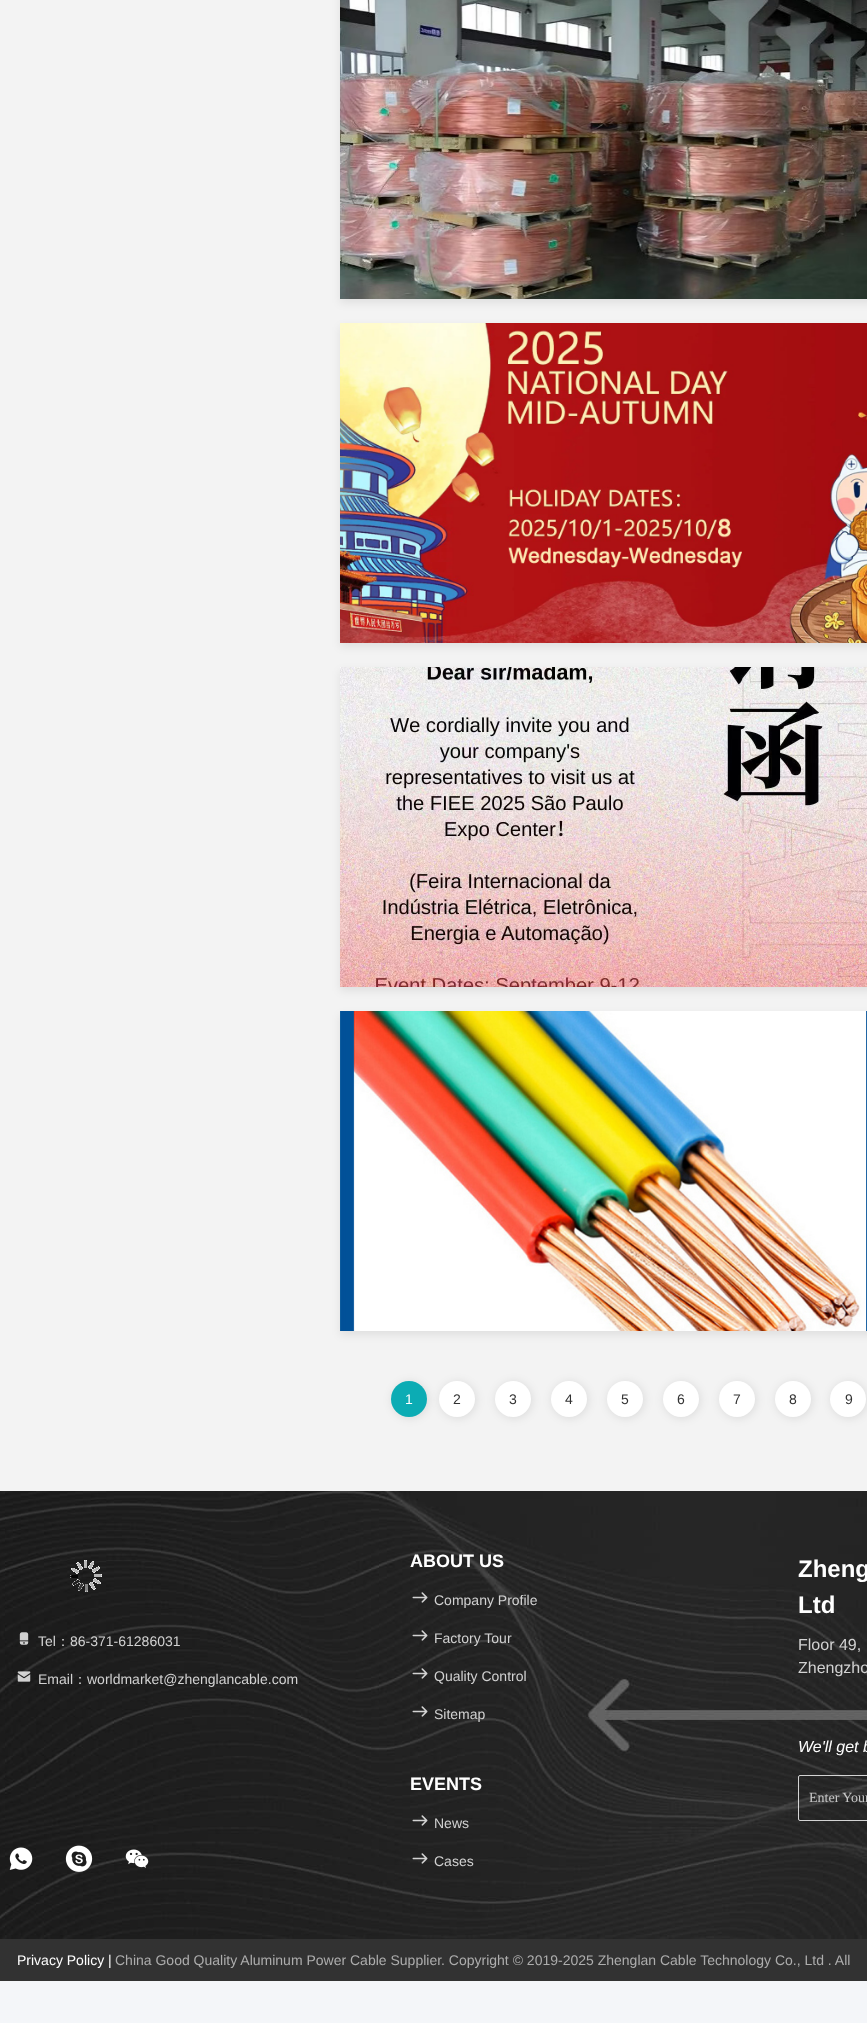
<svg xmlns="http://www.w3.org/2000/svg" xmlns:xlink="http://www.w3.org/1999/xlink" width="867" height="2023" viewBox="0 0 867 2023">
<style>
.cls-1{font:14px Liberation Sans;fill:#ffffff}
.cls-2{font:14px Liberation Sans;fill:#323232}
.cls-3{font:14px Liberation Sans;fill:#d2d2d2}
.cls-4{font:500 14px WenQuanYi Zen Hei;fill:#d2d2d2}
.cls-5{font:bold 18px Liberation Sans;fill:#ffffff}
.cls-6{font:bold 24px Liberation Sans;fill:#ffffff}
.cls-7{font:16px Liberation Sans;fill:#d2d2d2}
.cls-8{font:italic 16px Liberation Sans;fill:#ffffff}
.cls-9{font:14px Liberation Serif;fill:#c7c7c7}
.cls-10{font:14px Liberation Sans;fill:#adadad}
</style>
<rect width="100%" height="100%" fill="#f4f6f9"/>
<rect fill="#f3f3f3" x="0" y="0" width="867" height="1491"/>
<rect fill="#000000" fill-opacity="0.08" filter="blur(4px)" x="340" y="-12" width="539" height="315"/>
<image xlink:href="image0.png" x="340" y="0" width="527" height="299"/>
<rect fill="#000000" fill-opacity="0.08" filter="blur(4px)" x="340" y="327" width="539" height="320"/>
<image xlink:href="image1.png" x="340" y="323" width="527" height="320"/>
<rect fill="#000000" fill-opacity="0.08" filter="blur(4px)" x="340" y="671" width="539" height="320"/>
<image xlink:href="image2.png" x="340" y="667" width="527" height="320"/>
<rect fill="#000000" fill-opacity="0.08" filter="blur(4px)" x="340" y="1015" width="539" height="320"/>
<image xlink:href="image3.png" x="340" y="1011" width="527" height="320"/>
<rect fill="#000000" fill-opacity="0.1" filter="blur(5px)" x="440" y="1382" width="36" height="36" rx="18"/>
<circle fill="#ffffff" cx="457" cy="1399" r="18"/>
<rect fill="#000000" fill-opacity="0.1" filter="blur(5px)" x="392" y="1382" width="36" height="36" rx="18"/>
<circle fill="#0cacb4" cx="409" cy="1399" r="18"/>
<rect fill="#000000" fill-opacity="0.1" filter="blur(5px)" x="496" y="1382" width="36" height="36" rx="18"/>
<circle fill="#ffffff" cx="513" cy="1399" r="18"/>
<rect fill="#000000" fill-opacity="0.1" filter="blur(5px)" x="552" y="1382" width="36" height="36" rx="18"/>
<circle fill="#ffffff" cx="569" cy="1399" r="18"/>
<rect fill="#000000" fill-opacity="0.1" filter="blur(5px)" x="608" y="1382" width="36" height="36" rx="18"/>
<circle fill="#ffffff" cx="625" cy="1399" r="18"/>
<rect fill="#000000" fill-opacity="0.1" filter="blur(5px)" x="664" y="1382" width="36" height="36" rx="18"/>
<circle fill="#ffffff" cx="681" cy="1399" r="18"/>
<rect fill="#000000" fill-opacity="0.1" filter="blur(5px)" x="720" y="1382" width="36" height="36" rx="18"/>
<circle fill="#ffffff" cx="737" cy="1399" r="18"/>
<rect fill="#000000" fill-opacity="0.1" filter="blur(5px)" x="776" y="1382" width="36" height="36" rx="18"/>
<circle fill="#ffffff" cx="793" cy="1399" r="18"/>
<rect fill="#000000" fill-opacity="0.1" filter="blur(5px)" x="831" y="1382" width="36" height="36" rx="18"/>
<circle fill="#ffffff" cx="848" cy="1399" r="18"/>
<image xlink:href="image4.png" x="0" y="1491" width="867" height="448"/>
<image xlink:href="image5.png" x="70" y="1560" width="32" height="32"/>
<image xlink:href="image6.png" x="19" y="1632" width="10" height="13"/>
<image xlink:href="image7.png" x="17" y="1671" width="14" height="11"/>
<image xlink:href="image8.png" x="9" y="1847" width="24" height="23"/>
<image xlink:href="image9.png" x="65" y="1845" width="28" height="27"/>
<image xlink:href="image10.png" x="125" y="1849" width="24" height="19"/>
<image xlink:href="image11.png" x="412" y="1592" width="16" height="11"/>
<image xlink:href="image12.png" x="412" y="1630" width="16" height="11"/>
<image xlink:href="image13.png" x="412" y="1668" width="16" height="11"/>
<image xlink:href="image14.png" x="412" y="1706" width="16" height="11"/>
<image xlink:href="image15.png" x="412" y="1815" width="16" height="11"/>
<image xlink:href="image16.png" x="412" y="1853" width="16" height="11"/>
<rect fill="none" stroke="#ffffff" stroke-opacity="0.8" x="798.5" y="1775.5" width="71" height="45" rx="1.5"/>
<rect fill="#323232" x="0" y="1939" width="867" height="42"/>
<text class="cls-1" x="405" y="1404">1</text>
<text class="cls-2" x="453" y="1404">2</text>
<text class="cls-2" x="509" y="1404">3</text>
<text class="cls-2" x="565" y="1404">4</text>
<text class="cls-2" x="621" y="1404">5</text>
<text class="cls-2" x="677" y="1404">6</text>
<text class="cls-2" x="733" y="1404">7</text>
<text class="cls-2" x="789" y="1404">8</text>
<text class="cls-2" x="845" y="1404">9</text>
<text class="cls-3" x="38" y="1646">Tel</text>
<text class="cls-4" x="56" y="1646">：</text>
<text class="cls-3" x="70" y="1646">86-371-61286031</text>
<text class="cls-3" x="38" y="1684">Email</text>
<text class="cls-4" x="73" y="1684">：</text>
<text class="cls-3" x="87" y="1684">worldmarket@zhenglancable.com</text>
<text class="cls-5" x="410" y="1567">ABOUT US</text>
<text class="cls-3" x="434" y="1605">Company Profile</text>
<text class="cls-3" x="434" y="1643">Factory Tour</text>
<text class="cls-3" x="434" y="1681">Quality Control</text>
<text class="cls-3" x="434" y="1719">Sitemap</text>
<text class="cls-5" x="410" y="1790">EVENTS</text>
<text class="cls-3" x="434" y="1828">News</text>
<text class="cls-3" x="434" y="1866">Cases</text>
<text class="cls-6"><tspan x="798" y="1577">Zheng</tspan><tspan x="798" y="1613">Ltd</tspan></text>
<text class="cls-7"><tspan x="798" y="1650">Floor 49,</tspan><tspan x="798" y="1673">Zhengzho</tspan></text>
<text class="cls-8" x="798" y="1752">We'll get b</text>
<text class="cls-9" x="809" y="1802">Enter Your</text>
<text class="cls-1" x="17" y="1965">Privacy Policy |</text>
<text class="cls-10" x="115" y="1965">China Good Quality Aluminum Power Cable Supplier. Copyright © 2019-2025 Zhenglan Cable Technology Co., Ltd . All</text>
</svg>
